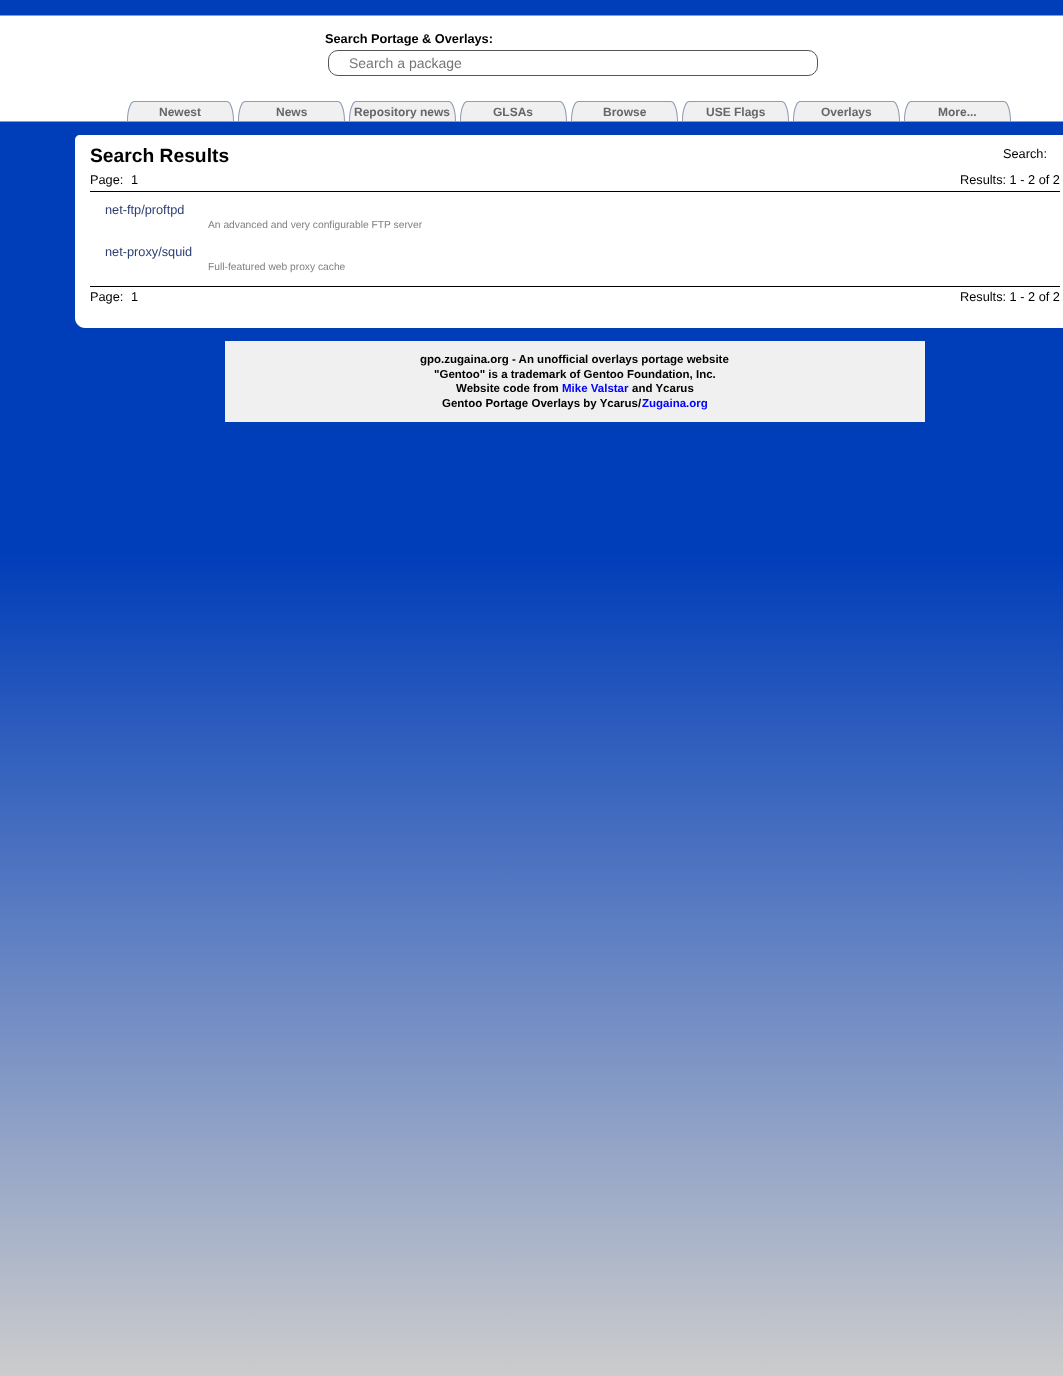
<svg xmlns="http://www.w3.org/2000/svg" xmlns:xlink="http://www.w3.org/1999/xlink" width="1063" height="1376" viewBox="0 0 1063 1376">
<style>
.cls-1{font:bold 12.75px Liberation Sans;fill:#000000}
.cls-2{font:14px Liberation Sans;fill:#757575}
.cls-3{font:bold 12px Liberation Sans;fill:#666666}
.cls-4{font:bold 19.25px Liberation Sans;fill:#000000}
.cls-5{font:12.75px Liberation Sans;fill:#000000}
.cls-6{font:12.75px Liberation Sans;fill:#2b3e73}
.cls-7{font:10.25px Liberation Sans;fill:#808080}
.cls-8{font:bold 11.5px Liberation Sans;fill:#000000}
.cls-9{font:bold 11.5px Liberation Sans;fill:#0000ff}
</style>
<defs>
<linearGradient id="g1" gradientUnits="userSpaceOnUse" x1="0" y1="0" x2="0" y2="1376"><stop offset="0.4" stop-color="#003db9"/><stop offset="1" stop-color="#cccccc"/></linearGradient>
</defs>
<rect width="100%" height="100%" fill="#ffffff"/>
<rect fill="url(#g1)" x="0" y="0" width="1063" height="1376"/>
<rect fill="#ffffff" x="0" y="16" width="1063" height="105"/>
<rect fill="#8f9cb4" x="0" y="15" width="1063" height="1"/>
<rect fill="#8f9cb4" x="0" y="121" width="1063" height="1"/>
<rect fill="none" stroke="#555555" x="328.5" y="50.5" width="489" height="25" rx="9.5"/>
<path fill="#f0f0f0" d="M134 101H227C231 101 234 110 234 121H127C127 110 130 101 134 101Z"/>
<path fill="#8f9cb4" fill-rule="evenodd" d="M134 101H227C231 101 234 110 234 121H127C127 110 130 101 134 101ZM134 102H227C230 102 233 111 233 121H128C128 111 131 102 134 102Z"/>
<path fill="#f0f0f0" d="M245 101H338C342 101 345 110 345 121H238C238 110 241 101 245 101Z"/>
<path fill="#8f9cb4" fill-rule="evenodd" d="M245 101H338C342 101 345 110 345 121H238C238 110 241 101 245 101ZM245 102H338C341 102 344 111 344 121H239C239 111 242 102 245 102Z"/>
<path fill="#f0f0f0" d="M356 101H449C453 101 456 110 456 121H349C349 110 352 101 356 101Z"/>
<path fill="#8f9cb4" fill-rule="evenodd" d="M356 101H449C453 101 456 110 456 121H349C349 110 352 101 356 101ZM356 102H449C452 102 455 111 455 121H350C350 111 353 102 356 102Z"/>
<path fill="#f0f0f0" d="M467 101H560C564 101 567 110 567 121H460C460 110 463 101 467 101Z"/>
<path fill="#8f9cb4" fill-rule="evenodd" d="M467 101H560C564 101 567 110 567 121H460C460 110 463 101 467 101ZM467 102H560C563 102 566 111 566 121H461C461 111 464 102 467 102Z"/>
<path fill="#f0f0f0" d="M578 101H671C675 101 678 110 678 121H571C571 110 574 101 578 101Z"/>
<path fill="#8f9cb4" fill-rule="evenodd" d="M578 101H671C675 101 678 110 678 121H571C571 110 574 101 578 101ZM578 102H671C674 102 677 111 677 121H572C572 111 575 102 578 102Z"/>
<path fill="#f0f0f0" d="M689 101H782C786 101 789 110 789 121H682C682 110 685 101 689 101Z"/>
<path fill="#8f9cb4" fill-rule="evenodd" d="M689 101H782C786 101 789 110 789 121H682C682 110 685 101 689 101ZM689 102H782C785 102 788 111 788 121H683C683 111 686 102 689 102Z"/>
<path fill="#f0f0f0" d="M800 101H893C897 101 900 110 900 121H793C793 110 796 101 800 101Z"/>
<path fill="#8f9cb4" fill-rule="evenodd" d="M800 101H893C897 101 900 110 900 121H793C793 110 796 101 800 101ZM800 102H893C896 102 899 111 899 121H794C794 111 797 102 800 102Z"/>
<path fill="#f0f0f0" d="M911 101H1004C1008 101 1011 110 1011 121H904C904 110 907 101 911 101Z"/>
<path fill="#8f9cb4" fill-rule="evenodd" d="M911 101H1004C1008 101 1011 110 1011 121H904C904 110 907 101 911 101ZM911 102H1004C1007 102 1010 111 1010 121H905C905 111 908 102 911 102Z"/>
<path fill="#ffffff" d="M80 135H1063C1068.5 135 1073 139.5 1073 145V323C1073 326 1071 328 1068 328H85C79.5 328 75 323.5 75 318V140C75 137 77 135 80 135Z"/>
<rect fill="#000000" x="90" y="191" width="970" height="1"/>
<rect fill="#000000" x="90" y="286" width="970" height="1"/>
<rect fill="#f0f0f0" x="225" y="341" width="700" height="81"/>
<text class="cls-1" x="325" y="43">Search Portage &amp; Overlays:</text>
<text class="cls-2" x="349" y="68">Search a package</text>
<text class="cls-3" x="159" y="116">Newest</text>
<text class="cls-3" x="276" y="116">News</text>
<text class="cls-3" x="354" y="116">Repository news</text>
<text class="cls-3" x="493" y="116">GLSAs</text>
<text class="cls-3" x="603" y="116">Browse</text>
<text class="cls-3" x="706" y="116">USE Flags</text>
<text class="cls-3" x="821" y="116">Overlays</text>
<text class="cls-3" x="938" y="116">More...</text>
<text class="cls-4" x="90" y="162">Search Results</text>
<text class="cls-5" x="1003" y="158">Search:</text>
<text class="cls-5" x="90" y="184">Page:</text>
<text class="cls-5" x="131" y="184">1</text>
<text class="cls-5" x="960" y="184">Results: 1 - 2 of 2</text>
<text class="cls-6" x="105" y="214">net-ftp/proftpd</text>
<text class="cls-7" x="208" y="228">An advanced and very configurable FTP server</text>
<text class="cls-6" x="105" y="256">net-proxy/squid</text>
<text class="cls-7" x="208" y="270">Full-featured web proxy cache</text>
<text class="cls-5" x="90" y="301">Page:</text>
<text class="cls-5" x="131" y="301">1</text>
<text class="cls-5" x="960" y="301">Results: 1 - 2 of 2</text>
<text class="cls-8" x="420" y="363">gpo.zugaina.org - An unofficial overlays portage website</text>
<text class="cls-8" x="434" y="378">"Gentoo" is a trademark of Gentoo Foundation, Inc.</text>
<text class="cls-8" x="456" y="392">Website code from</text>
<text class="cls-9" x="562" y="392">Mike Valstar</text>
<text class="cls-8" x="632" y="392">and Ycarus</text>
<text class="cls-8" x="442" y="407">Gentoo Portage Overlays by Ycarus/</text>
<text class="cls-9" x="642" y="407">Zugaina.org</text>
</svg>
